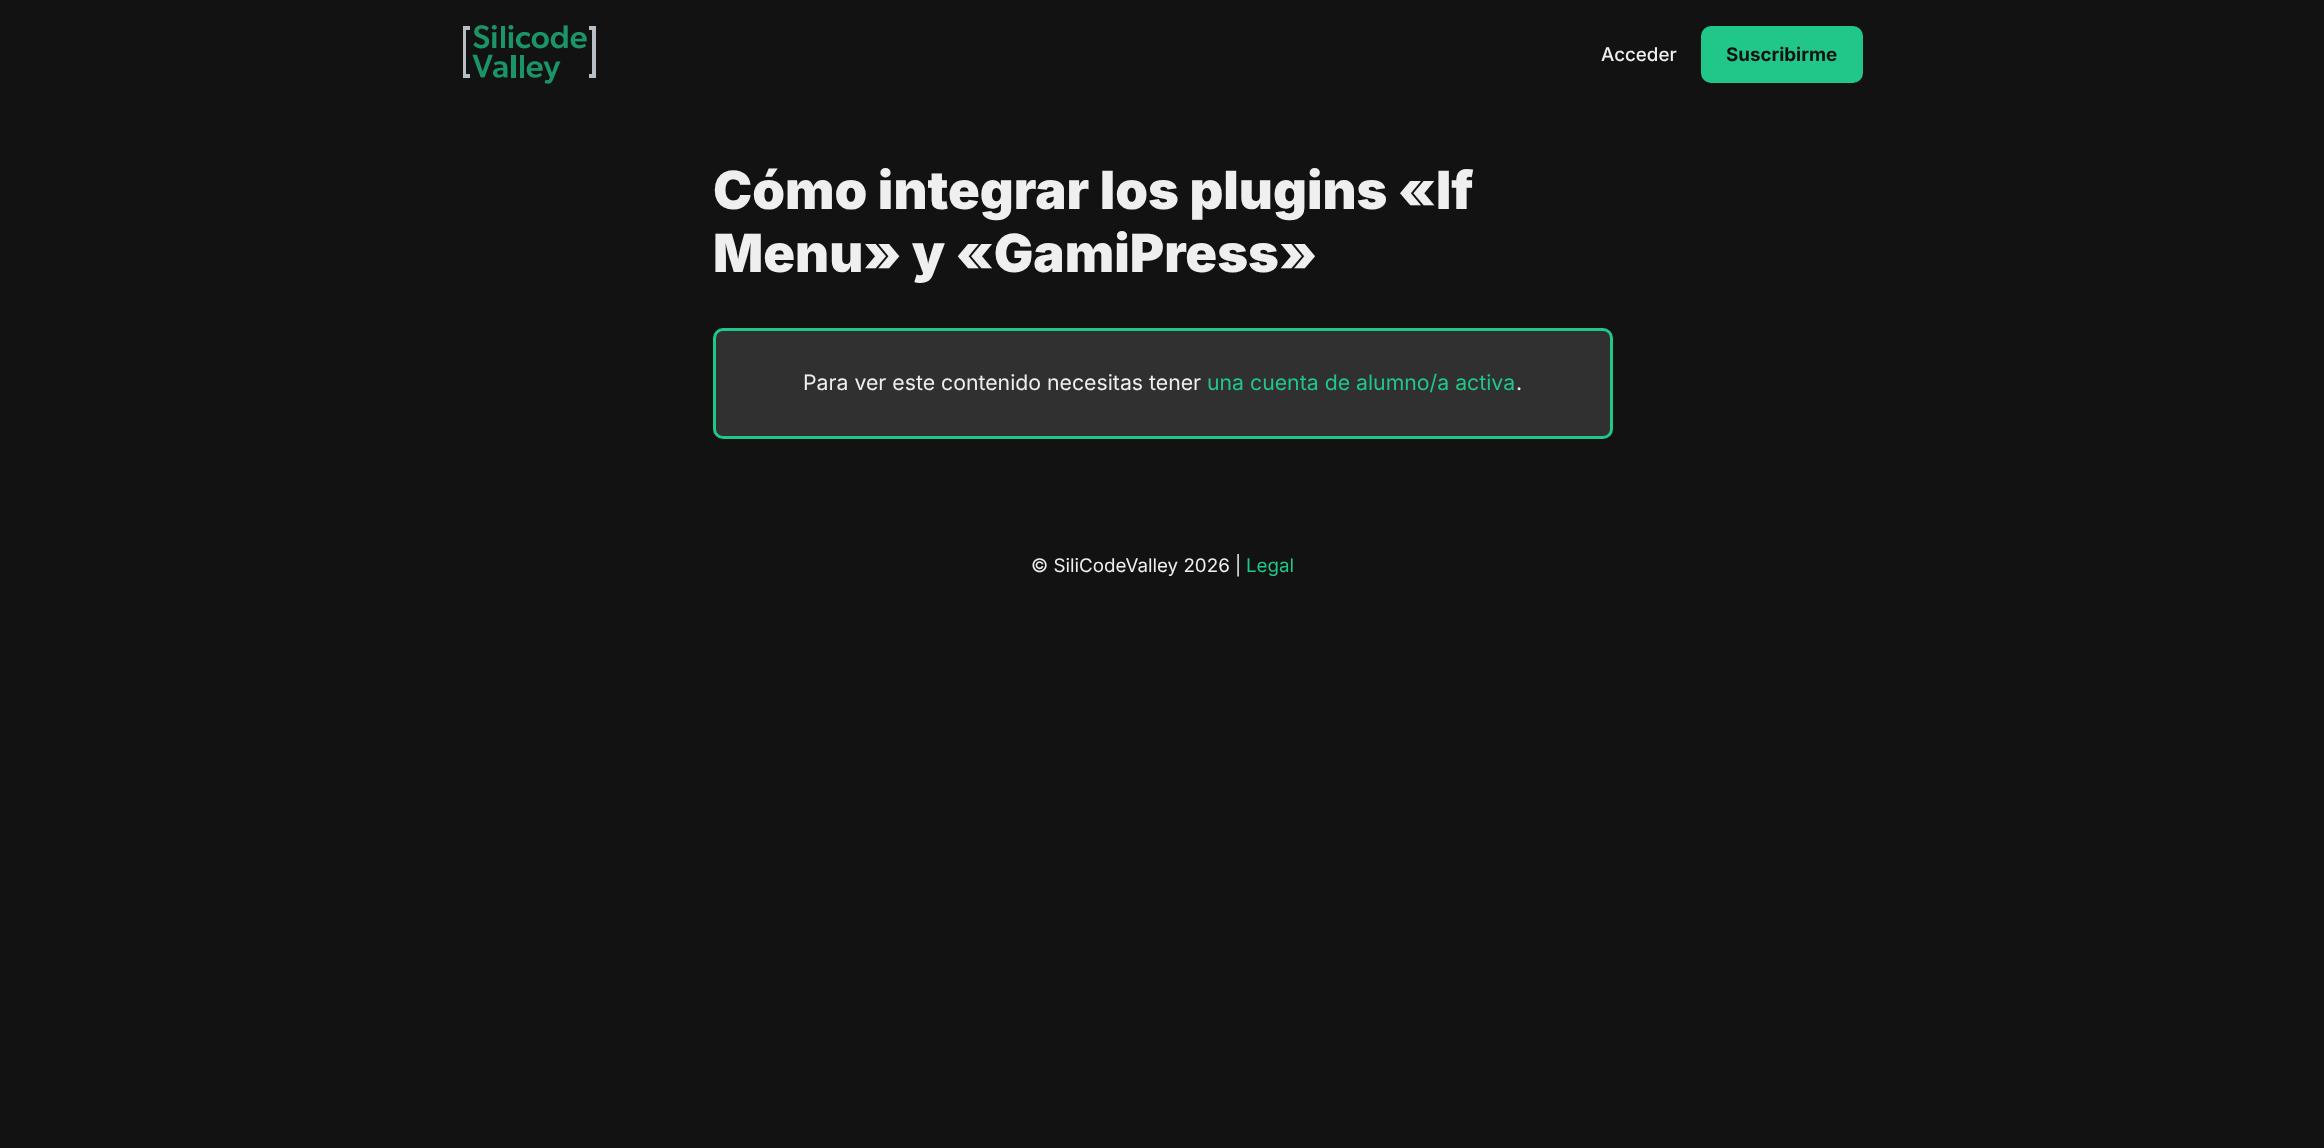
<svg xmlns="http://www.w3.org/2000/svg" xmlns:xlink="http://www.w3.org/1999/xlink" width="2324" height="1148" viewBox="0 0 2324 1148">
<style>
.cls-1{font:500 18.75px Inter;fill:#efefef}
.cls-2{font:bold 18.75px Inter;fill:#121212}
.cls-3{font:900 52.5px Inter;fill:#efefef}
.cls-4{font:21.25px Inter;fill:#efefef}
.cls-5{font:21.25px Inter;fill:#20c789}
.cls-6{font:18.75px Inter;fill:#efefef}
.cls-7{font:18.75px Inter;fill:#20c789}
</style>
<rect width="100%" height="100%" fill="#121212"/>
<image xlink:href="image0.png" x="463" y="25" width="133" height="59"/>
<rect fill="#20c789" x="1701" y="26" width="162" height="57" rx="10"/>
<rect fill="#303030" stroke="#20c789" stroke-width="3" x="714.5" y="329.5" width="897" height="108" rx="8.5"/>
<text class="cls-1" x="1601" y="61">Acceder</text>
<text class="cls-2" x="1726" y="61">Suscribirme</text>
<text class="cls-3"><tspan x="713" y="209">Cómo integrar los plugins «If</tspan><tspan x="713" y="272">Menu» y «GamiPress»</tspan></text>
<text class="cls-4" x="803" y="390">Para ver este contenido necesitas tener</text>
<text class="cls-5" x="1207" y="390">una cuenta de alumno/a activa</text>
<text class="cls-4" x="1516" y="390">.</text>
<text class="cls-6" x="1031" y="572">© SiliCodeValley 2026 |</text>
<text class="cls-7" x="1246" y="572">Legal</text>
</svg>
